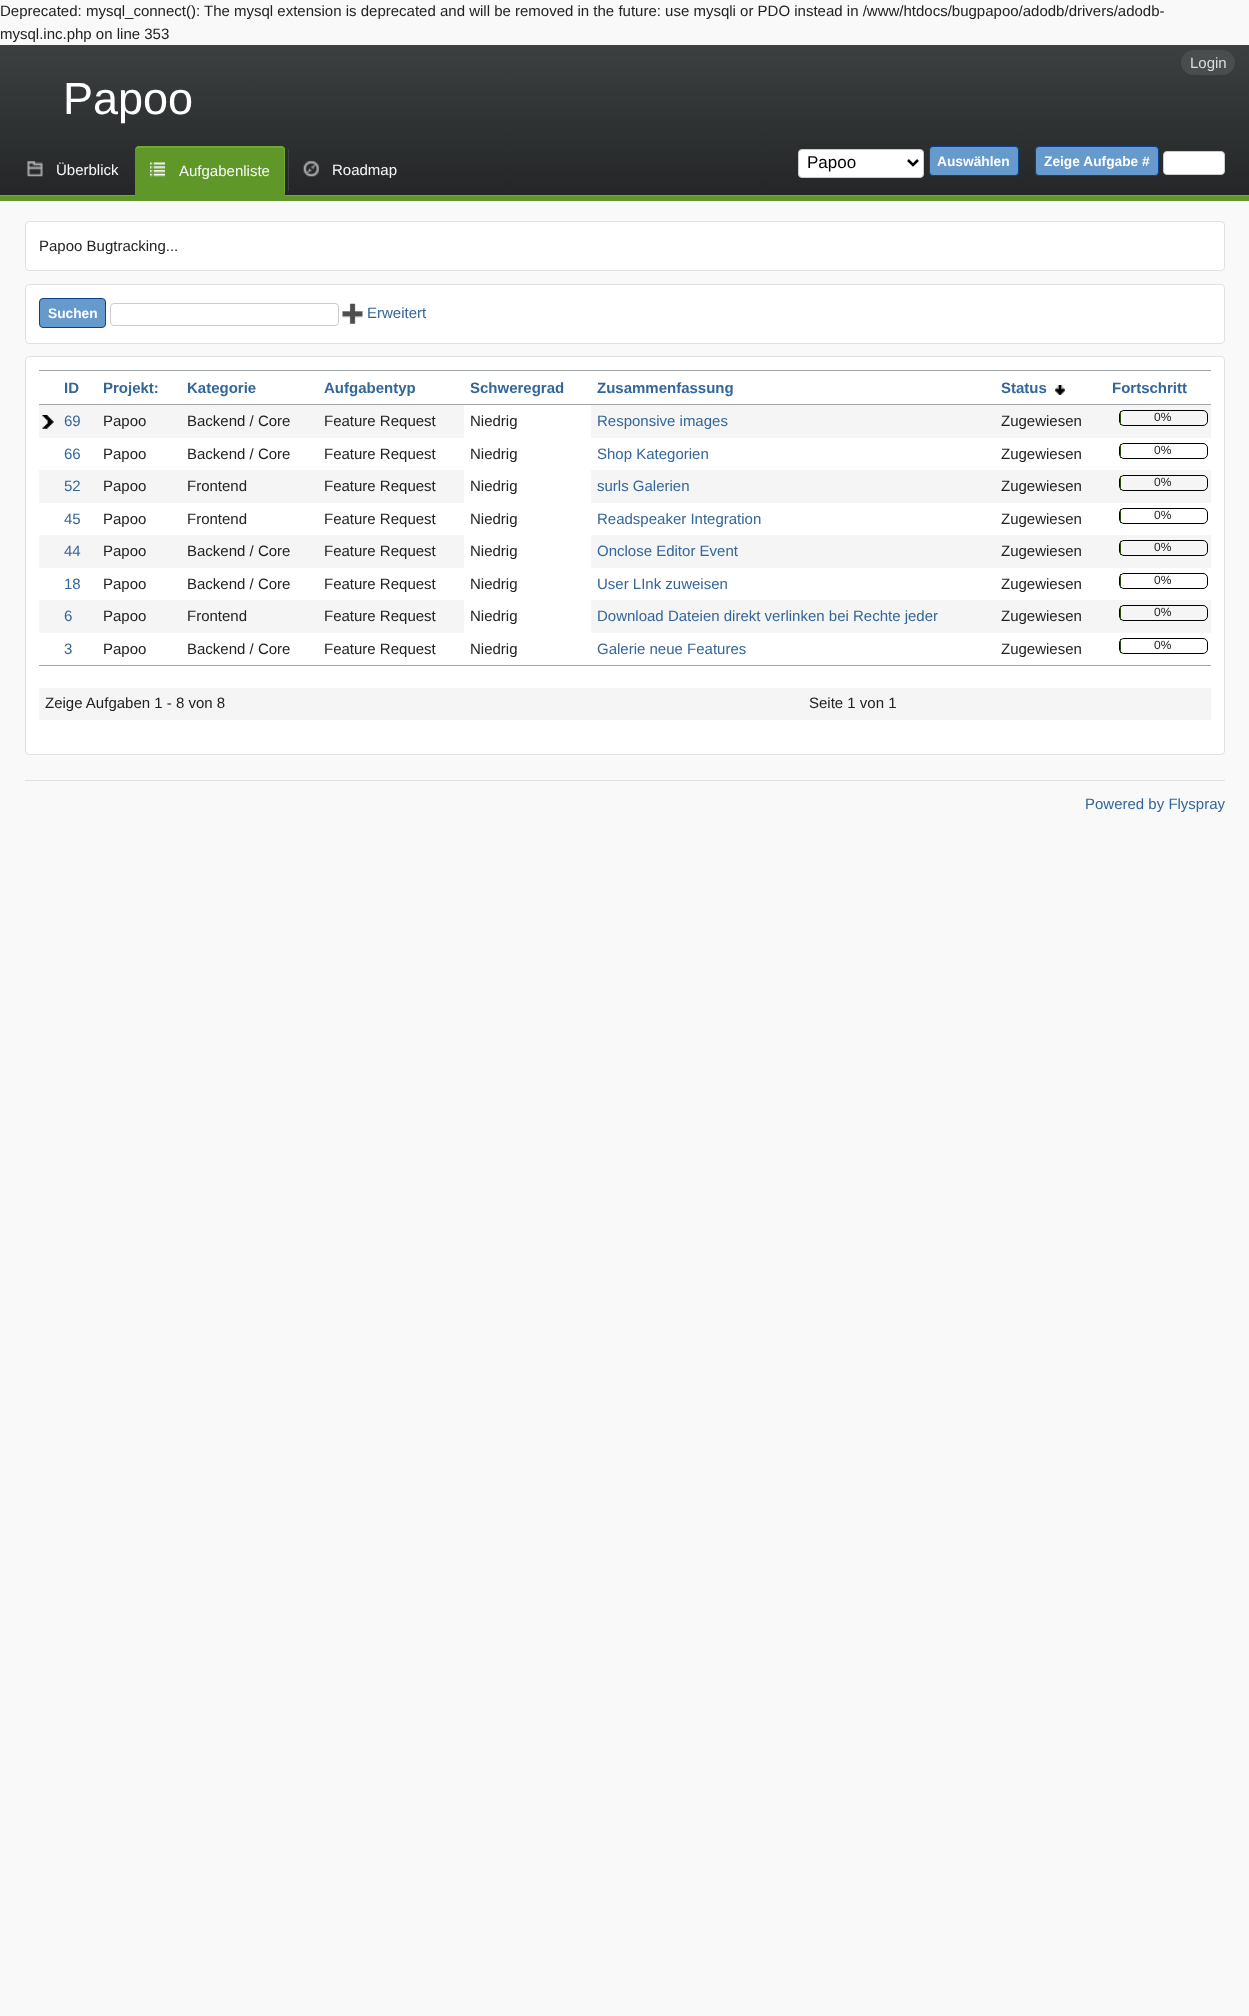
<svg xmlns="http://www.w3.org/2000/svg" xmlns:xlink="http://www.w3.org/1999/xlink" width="1249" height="2016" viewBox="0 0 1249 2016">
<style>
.cls-1{font:15px Liberation Sans;fill:#222222}
.cls-2{font:15px Liberation Sans;fill:#dddddd}
.cls-3{font:45px Liberation Sans;fill:#ffffff}
.cls-4{font:15px Liberation Sans;fill:#f9f9f9}
.cls-5{font:17px Liberation Sans;fill:#000000}
.cls-6{font:bold 13.75px Liberation Sans;fill:#ffffff}
.cls-7{font:15px Liberation Sans;fill:#336699}
.cls-8{font:bold 15px Liberation Sans;fill:#336699}
.cls-9{font:12px Liberation Sans;fill:#222222}
</style>
<defs>
<linearGradient id="g1" gradientUnits="userSpaceOnUse" x1="625" y1="45" x2="625" y2="195"><stop offset="0" stop-color="#3c4041"/><stop offset="1" stop-color="#242627"/></linearGradient>
</defs>
<rect width="100%" height="100%" fill="#f9f9f9"/>
<rect fill="url(#g1)" x="0" y="45" width="1249" height="150"/>
<rect fill="#494d4e" x="1181" y="50" width="54" height="25" rx="12.5"/>
<rect fill="#6cab2e" x="0" y="195" width="1249" height="1"/>
<rect fill="#5f9729" x="0" y="196" width="1249" height="5"/>
<image xlink:href="image0.png" x="27" y="161" width="16" height="16"/>
<path fill="#5f9729" d="M139 146H281C283 146 285 148 285 150V196H135V150C135 148 137 146 139 146Z"/>
<image xlink:href="image1.png" x="150" y="162" width="15" height="15"/>
<path fill="#6cab2e" d="M139 148C137 148 135 149 135 150C135 148 136 147 138 146H282L284 147L283 148H281Z"/>
<path fill="#6cab2e" d="M284 192V150L283 148L284 147C285 148 285 149 285 150V196Z"/>
<path fill="#5f9729" d="M135 192V196H285L284 192Z"/>
<image xlink:href="image2.png" x="303" y="161" width="16" height="16"/>
<rect fill="#3c4041" x="288" y="149" width="1" height="42"/>
<rect fill="#ffffff" stroke="#cccccc" x="798.5" y="149.5" width="125" height="28" rx="3.5"/>
<path fill="none" stroke="#000000" stroke-width="2.5" d="M908 160L913 165L918 160"/>
<rect fill="#6699cc" stroke="#0a4193" x="929.5" y="146.5" width="89" height="29" rx="3.5"/>
<rect fill="#6699cc" stroke="#0a4193" x="1035.5" y="146.5" width="123" height="29" rx="3.5"/>
<rect fill="#ffffff" stroke="#cccccc" x="1163.5" y="151.5" width="61" height="23" rx="3.5"/>
<rect fill="#ffffff" stroke="#e1e1e1" x="25.5" y="221.5" width="1199" height="49" rx="3.5"/>
<rect fill="#ffffff" stroke="#e1e1e1" x="25.5" y="284.5" width="1199" height="59" rx="3.5"/>
<rect fill="#6699cc" stroke="#0a4193" x="39.5" y="298.5" width="66" height="29" rx="3.5"/>
<rect fill="none" stroke="#cccccc" x="110.5" y="303.5" width="228" height="22" rx="3.5"/>
<image xlink:href="image3.png" x="342" y="303" width="21" height="21"/>
<rect fill="#ffffff" stroke="#e1e1e1" x="25.5" y="356.5" width="1199" height="398" rx="3.5"/>
<rect fill="#a1a6a8" x="39" y="665" width="1172" height="1"/>
<rect fill="#a1a6a8" x="39" y="370" width="1172" height="1"/>
<rect fill="#a1a6a8" x="39" y="404" width="1172" height="1"/>
<image xlink:href="image4.png" x="1055" y="385" width="10" height="10"/>
<rect fill="#f5f5f5" x="39" y="405" width="1172" height="33"/>
<image xlink:href="image5.png" x="42" y="415" width="12" height="14"/>
<rect fill="#ffffff" x="464" y="405" width="127" height="33"/>
<rect fill="none" stroke="#000000" x="1119.5" y="410.5" width="88" height="15" rx="4.5"/>
<rect fill="#2d4713" x="1120" y="411" width="1" height="14"/>
<rect fill="none" stroke="#000000" x="1119.5" y="443.5" width="88" height="15" rx="4.5"/>
<rect fill="#2d4713" x="1120" y="444" width="1" height="14"/>
<rect fill="#f5f5f5" x="39" y="470" width="1172" height="33"/>
<rect fill="#ffffff" x="464" y="470" width="127" height="33"/>
<rect fill="none" stroke="#000000" x="1119.5" y="475.5" width="88" height="15" rx="4.5"/>
<rect fill="#2d4713" x="1120" y="476" width="1" height="14"/>
<rect fill="none" stroke="#000000" x="1119.5" y="508.5" width="88" height="15" rx="4.5"/>
<rect fill="#2d4713" x="1120" y="509" width="1" height="14"/>
<rect fill="#f5f5f5" x="39" y="535" width="1172" height="33"/>
<rect fill="#ffffff" x="464" y="535" width="127" height="33"/>
<rect fill="none" stroke="#000000" x="1119.5" y="540.5" width="88" height="15" rx="4.5"/>
<rect fill="#2d4713" x="1120" y="541" width="1" height="14"/>
<rect fill="none" stroke="#000000" x="1119.5" y="573.5" width="88" height="15" rx="4.5"/>
<rect fill="#2d4713" x="1120" y="574" width="1" height="14"/>
<rect fill="#f5f5f5" x="39" y="600" width="1172" height="33"/>
<rect fill="#ffffff" x="464" y="600" width="127" height="33"/>
<rect fill="none" stroke="#000000" x="1119.5" y="605.5" width="88" height="15" rx="4.5"/>
<rect fill="#2d4713" x="1120" y="606" width="1" height="14"/>
<rect fill="none" stroke="#000000" x="1119.5" y="638.5" width="88" height="15" rx="4.5"/>
<rect fill="#2d4713" x="1120" y="639" width="1" height="14"/>
<rect fill="#f5f5f5" x="39" y="688" width="1172" height="32"/>
<rect fill="#e1e1e1" x="25" y="780" width="1200" height="1"/>
<text class="cls-1"><tspan x="0" y="16">Deprecated: mysql_connect(): The mysql extension is deprecated and will be removed in the future: use mysqli or PDO instead in /www/htdocs/bugpapoo/adodb/drivers/adodb-</tspan><tspan x="0" y="39">mysql.inc.php on line 353</tspan></text>
<text class="cls-2" x="1190" y="68">Login</text>
<text class="cls-3" x="63" y="114">Papoo</text>
<text class="cls-4" x="56" y="175">Überblick</text>
<text class="cls-4" x="179" y="176">Aufgabenliste</text>
<text class="cls-4" x="332" y="175">Roadmap</text>
<text class="cls-5" x="807" y="168">Papoo</text>
<text class="cls-6" x="937" y="166">Auswählen</text>
<text class="cls-6" x="1044" y="166">Zeige Aufgabe #</text>
<text class="cls-1" x="39" y="251">Papoo Bugtracking...</text>
<text class="cls-6" x="48" y="318">Suchen</text>
<text class="cls-7" x="367" y="318">Erweitert</text>
<text class="cls-8" x="64" y="393">ID</text>
<text class="cls-8" x="103" y="393">Projekt:</text>
<text class="cls-8" x="187" y="393">Kategorie</text>
<text class="cls-8" x="324" y="393">Aufgabentyp</text>
<text class="cls-8" x="470" y="393">Schweregrad</text>
<text class="cls-8" x="597" y="393">Zusammenfassung</text>
<text class="cls-8" x="1001" y="393">Status</text>
<text class="cls-8" x="1112" y="393">Fortschritt</text>
<text class="cls-7" x="64" y="426">69</text>
<text class="cls-1" x="103" y="426">Papoo</text>
<text class="cls-1" x="187" y="426">Backend / Core</text>
<text class="cls-1" x="324" y="426">Feature Request</text>
<text class="cls-1" x="470" y="426">Niedrig</text>
<text class="cls-7" x="597" y="426">Responsive images</text>
<text class="cls-1" x="1001" y="426">Zugewiesen</text>
<text class="cls-9" x="1154" y="421">0%</text>
<text class="cls-7" x="64" y="459">66</text>
<text class="cls-1" x="103" y="459">Papoo</text>
<text class="cls-1" x="187" y="459">Backend / Core</text>
<text class="cls-1" x="324" y="459">Feature Request</text>
<text class="cls-1" x="470" y="459">Niedrig</text>
<text class="cls-7" x="597" y="459">Shop Kategorien</text>
<text class="cls-1" x="1001" y="459">Zugewiesen</text>
<text class="cls-9" x="1154" y="454">0%</text>
<text class="cls-7" x="64" y="491">52</text>
<text class="cls-1" x="103" y="491">Papoo</text>
<text class="cls-1" x="187" y="491">Frontend</text>
<text class="cls-1" x="324" y="491">Feature Request</text>
<text class="cls-1" x="470" y="491">Niedrig</text>
<text class="cls-7" x="597" y="491">surls Galerien</text>
<text class="cls-1" x="1001" y="491">Zugewiesen</text>
<text class="cls-9" x="1154" y="486">0%</text>
<text class="cls-7" x="64" y="524">45</text>
<text class="cls-1" x="103" y="524">Papoo</text>
<text class="cls-1" x="187" y="524">Frontend</text>
<text class="cls-1" x="324" y="524">Feature Request</text>
<text class="cls-1" x="470" y="524">Niedrig</text>
<text class="cls-7" x="597" y="524">Readspeaker Integration</text>
<text class="cls-1" x="1001" y="524">Zugewiesen</text>
<text class="cls-9" x="1154" y="519">0%</text>
<text class="cls-7" x="64" y="556">44</text>
<text class="cls-1" x="103" y="556">Papoo</text>
<text class="cls-1" x="187" y="556">Backend / Core</text>
<text class="cls-1" x="324" y="556">Feature Request</text>
<text class="cls-1" x="470" y="556">Niedrig</text>
<text class="cls-7" x="597" y="556">Onclose Editor Event</text>
<text class="cls-1" x="1001" y="556">Zugewiesen</text>
<text class="cls-9" x="1154" y="551">0%</text>
<text class="cls-7" x="64" y="589">18</text>
<text class="cls-1" x="103" y="589">Papoo</text>
<text class="cls-1" x="187" y="589">Backend / Core</text>
<text class="cls-1" x="324" y="589">Feature Request</text>
<text class="cls-1" x="470" y="589">Niedrig</text>
<text class="cls-7" x="597" y="589">User LInk zuweisen</text>
<text class="cls-1" x="1001" y="589">Zugewiesen</text>
<text class="cls-9" x="1154" y="584">0%</text>
<text class="cls-7" x="64" y="621">6</text>
<text class="cls-1" x="103" y="621">Papoo</text>
<text class="cls-1" x="187" y="621">Frontend</text>
<text class="cls-1" x="324" y="621">Feature Request</text>
<text class="cls-1" x="470" y="621">Niedrig</text>
<text class="cls-7" x="597" y="621">Download Dateien direkt verlinken bei Rechte jeder</text>
<text class="cls-1" x="1001" y="621">Zugewiesen</text>
<text class="cls-9" x="1154" y="616">0%</text>
<text class="cls-7" x="64" y="654">3</text>
<text class="cls-1" x="103" y="654">Papoo</text>
<text class="cls-1" x="187" y="654">Backend / Core</text>
<text class="cls-1" x="324" y="654">Feature Request</text>
<text class="cls-1" x="470" y="654">Niedrig</text>
<text class="cls-7" x="597" y="654">Galerie neue Features</text>
<text class="cls-1" x="1001" y="654">Zugewiesen</text>
<text class="cls-9" x="1154" y="649">0%</text>
<text class="cls-1" x="45" y="708">Zeige Aufgaben 1 - 8 von 8</text>
<text class="cls-1" x="809" y="708">Seite 1 von 1</text>
<text class="cls-7" x="1085" y="809">Powered by Flyspray</text>
</svg>
